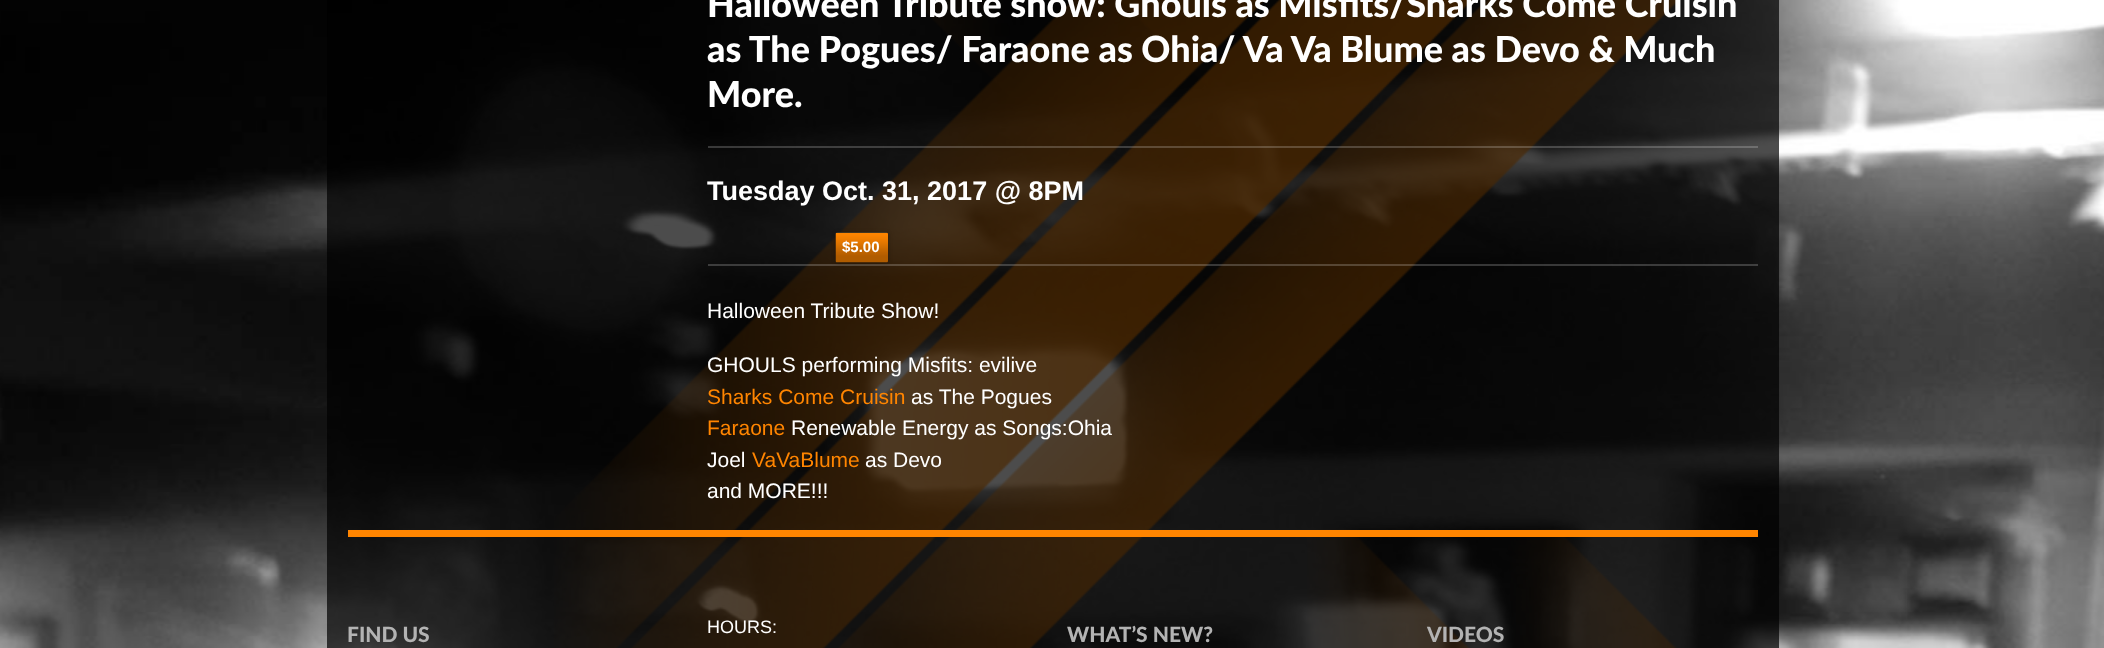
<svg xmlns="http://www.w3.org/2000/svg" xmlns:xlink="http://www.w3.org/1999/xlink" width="2104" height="648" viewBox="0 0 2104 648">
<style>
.cls-1{font:900 36px Lato;fill:#ffffff}
.cls-2{font:bold 27px Liberation Sans;fill:#ffffff}
.cls-3{font:bold 15px Liberation Sans;fill:#ffffff}
.cls-4{font:21px Liberation Sans;fill:#ffffff}
.cls-5{font:21px Liberation Sans;fill:#ff8500}
.cls-6{font:900 21px Lato;fill:#b3b3b3}
.cls-7{font:18px Liberation Sans;fill:#ffffff}
</style>
<rect width="100%" height="100%" fill="#ffffff"/>
<image xlink:href="image0.png" x="0" y="0" width="2104" height="648"/>
<image xlink:href="image1.png" x="554" y="0" width="1127" height="648"/>
<image xlink:href="image3.png" x="1307" y="529" width="370" height="119"/>
<rect fill="#000000" fill-opacity="0.7" x="327" y="0" width="1452" height="530"/>
<rect fill="#ffffff" fill-opacity="0.2" x="708" y="146" width="1050" height="2"/>
<rect fill="#ffffff" fill-opacity="0.2" x="708" y="264" width="1050" height="2"/>
<rect fill="#000000" fill-opacity="0.3" filter="blur(2px)" x="836" y="233" width="52" height="30" rx="1.5"/>
<image xlink:href="image2.png" x="835" y="232" width="53" height="31"/>
<rect fill="#000000" fill-opacity="0.7" x="327" y="530" width="1452" height="118"/>
<rect fill="#ff8500" x="348" y="530" width="1410" height="7"/>
<text class="cls-1"><tspan x="707" y="17">Halloween Tribute show: Ghouls as Misfits/Sharks Come Cruisin</tspan><tspan x="707" y="62">as The Pogues/ Faraone as Ohia/ Va Va Blume as Devo &amp; Much</tspan><tspan x="707" y="107">More.</tspan></text>
<text class="cls-2" x="707" y="200">Tuesday Oct. 31, 2017 @ 8PM</text>
<text class="cls-3" x="842" y="252">$5.00</text>
<text class="cls-4" x="707" y="318">Halloween Tribute Show!</text>
<text class="cls-4" x="707" y="372">GHOULS performing Misfits: evilive</text>
<text class="cls-5" x="707" y="404">Sharks Come Cruisin</text>
<text class="cls-4" x="911" y="404">as The Pogues</text>
<text class="cls-5" x="707" y="435">Faraone</text>
<text class="cls-4" x="791" y="435">Renewable Energy as Songs:Ohia</text>
<text class="cls-4" x="707" y="467">Joel</text>
<text class="cls-5" x="752" y="467">VaVaBlume</text>
<text class="cls-4" x="865" y="467">as Devo</text>
<text class="cls-4" x="707" y="498">and MORE!!!</text>
<text class="cls-6" x="347" y="642">FIND US</text>
<text class="cls-7" x="707" y="633">HOURS:</text>
<text class="cls-6" x="1067" y="642">WHAT’S NEW?</text>
<text class="cls-6" x="1427" y="642">VIDEOS</text>
</svg>
